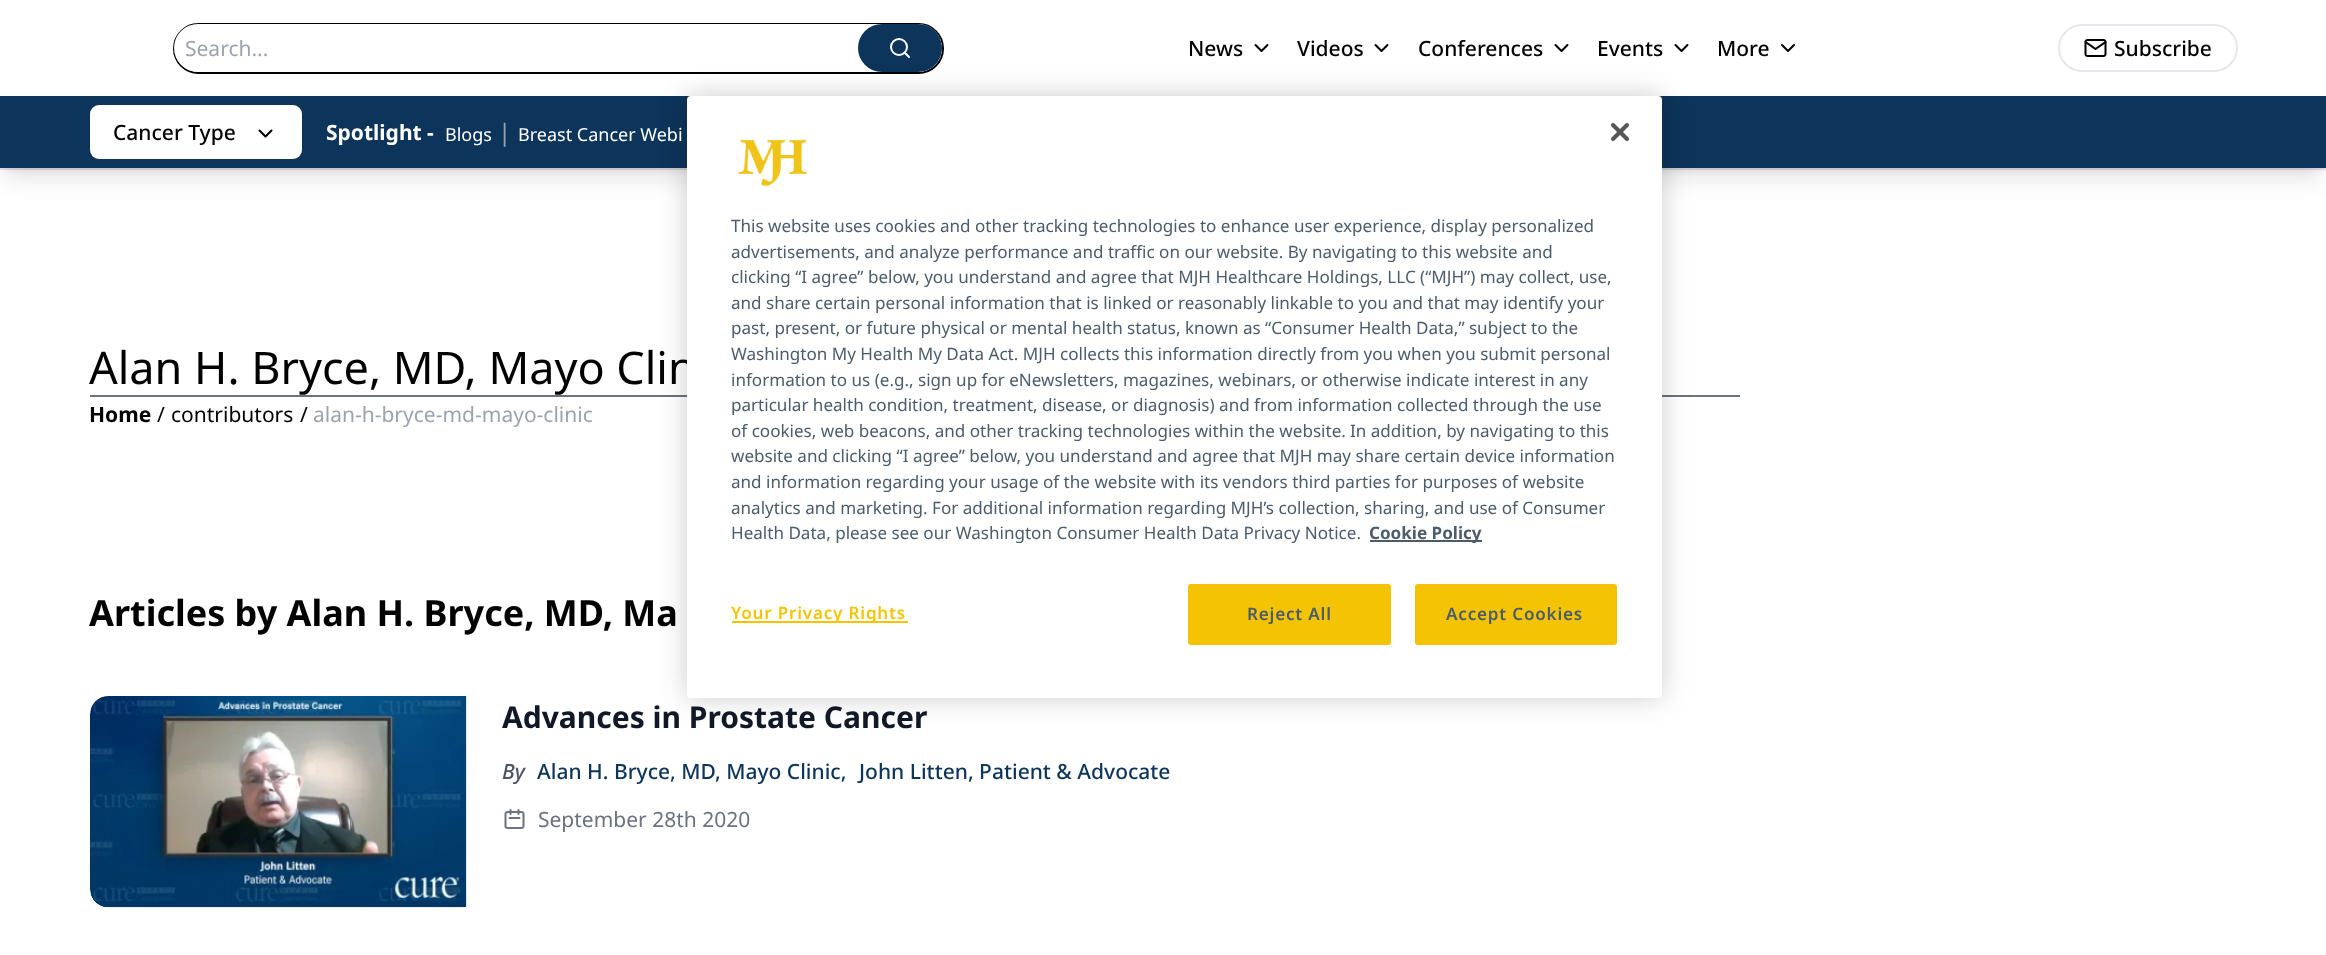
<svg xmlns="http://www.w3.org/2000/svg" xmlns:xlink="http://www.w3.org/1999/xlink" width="2326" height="955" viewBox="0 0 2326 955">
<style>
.cls-1{font:21px Noto Sans;fill:#9ca3af}
.cls-2{font:500 21px Noto Sans;fill:#000000}
.cls-3{font:bold 21px Noto Sans;fill:#ffffff}
.cls-4{font:18px Noto Sans;fill:#ffffff}
.cls-5{font:24px Noto Sans;fill:#9ca3af}
.cls-6{font:45px Noto Sans;fill:#000000}
.cls-7{font:bold 21px Noto Sans;fill:#000000}
.cls-8{font:21px Noto Sans;fill:#000000}
.cls-9{font:bold 36px Noto Sans;fill:#000000}
.cls-10{font:bold 30px Noto Sans;fill:#111827}
.cls-11{font:italic 500 21px Noto Sans;fill:#4b5563}
.cls-12{font:500 21px Noto Sans;fill:#0d345a}
.cls-13{font:21px Noto Sans;fill:#6b7280}
.cls-14{font:17.07px Noto Sans;fill:#4c5c6b}
.cls-15{font:bold 17.07px Noto Sans;fill:#4c5c6b}
.cls-16{font:600 17.07px Noto Sans;letter-spacing:0.8px;fill:#f4c404}
.cls-17{font:600 17.07px Noto Sans;letter-spacing:0.8px;fill:#4c5c6b}
</style>
<rect width="100%" height="100%" fill="#ffffff"/>
<rect fill="#e5e7eb" x="0" y="168" width="2326" height="2"/>
<rect fill="none" stroke="#000000" stroke-width="2" x="174" y="24" width="769" height="49" rx="24.5"/>
<rect fill="#ffffff" x="174" y="24" width="768" height="48" rx="24"/>
<rect fill="#0d345a" x="858" y="24" width="84" height="48" rx="24"/>
<circle fill="none" stroke="#ffffff" stroke-width="2" cx="899" cy="47" r="8"/>
<path fill="none" stroke="#ffffff" stroke-width="2" stroke-linecap="round" stroke-linejoin="round" d="M909 57L904.5 52.5"/>
<path fill="none" stroke="#000000" stroke-width="2" stroke-linecap="round" stroke-linejoin="round" d="M1255.5 45L1261.5 51L1267.5 45"/>
<path fill="none" stroke="#000000" stroke-width="2" stroke-linecap="round" stroke-linejoin="round" d="M1375.5 45L1381.5 51L1387.5 45"/>
<path fill="none" stroke="#000000" stroke-width="2" stroke-linecap="round" stroke-linejoin="round" d="M1555.5 45L1561.5 51L1567.5 45"/>
<path fill="none" stroke="#000000" stroke-width="2" stroke-linecap="round" stroke-linejoin="round" d="M1675.5 45L1681.5 51L1687.5 45"/>
<path fill="none" stroke="#000000" stroke-width="2" stroke-linecap="round" stroke-linejoin="round" d="M1782 45L1788 51L1794 45"/>
<rect fill="none" stroke="#e5e7eb" stroke-width="2" x="2059" y="25" width="178" height="46" rx="23"/>
<image xlink:href="image0.png" x="2084" y="39" width="23" height="18"/>
<rect fill="#000000" fill-opacity="0.1" filter="blur(4.5px)" x="6" y="108" width="2315" height="60"/>
<rect fill="#000000" fill-opacity="0.1" filter="blur(11px)" x="5" y="116" width="2317" height="63"/>
<rect fill="#0d345a" x="0" y="96" width="2326" height="72"/>
<rect fill="#ffffff" x="90" y="105" width="212" height="54" rx="9"/>
<path fill="none" stroke="#000000" stroke-width="2" stroke-linecap="round" stroke-linejoin="round" d="M259.5 130.5L265.5 136.5L271.5 130.5"/>
<rect fill="#6b7280" x="90" y="395" width="1650" height="2"/>
<image xlink:href="image1.png" x="90" y="696" width="377" height="212"/>
<image xlink:href="image2.png" x="504" y="809" width="21" height="20"/>
<rect fill="#000000" fill-opacity="0.2" filter="blur(13.5px)" x="687" y="96" width="975" height="602" rx="4"/>
<text class="cls-1" x="185" y="56">Search...</text>
<text class="cls-2" x="1188" y="56">News</text>
<text class="cls-2" x="1297" y="56">Videos</text>
<text class="cls-2" x="1418" y="56">Conferences</text>
<text class="cls-2" x="1597" y="56">Events</text>
<text class="cls-2" x="1717" y="56">More</text>
<text class="cls-2" x="2114" y="56">Subscribe</text>
<text class="cls-2" x="113" y="140">Cancer Type</text>
<text class="cls-3" x="326" y="140">Spotlight -</text>
<text class="cls-4" x="445" y="141">Blogs</text>
<text class="cls-5" x="498" y="141">|</text>
<text class="cls-4" x="518" y="141">Breast Cancer Webi</text>
<text class="cls-6" x="89" y="384">Alan H. Bryce, MD, Mayo Clin</text>
<text class="cls-7" x="89" y="422">Home</text>
<text class="cls-8" x="157" y="422">/</text>
<text class="cls-8" x="171" y="422">contributors</text>
<text class="cls-8" x="300" y="422">/</text>
<text class="cls-1" x="313" y="422">alan-h-bryce-md-mayo-clinic</text>
<text class="cls-9" x="89" y="626">Articles by Alan H. Bryce, MD, Ma</text>
<text class="cls-10" x="502" y="728">Advances in Prostate Cancer</text>
<text class="cls-11" x="502" y="779">By</text>
<text class="cls-12" x="537" y="779">Alan H. Bryce, MD, Mayo Clinic,</text>
<text class="cls-12" x="859" y="779">John Litten, Patient &amp; Advocate</text>
<text class="cls-13" x="538" y="827">September 28th 2020</text>
<rect fill="#ffffff" x="687" y="96" width="975" height="602" rx="4"/>
<image xlink:href="image3.png" x="1611" y="123" width="18" height="18"/>
<image xlink:href="image4.png" x="738" y="139" width="69" height="48"/>
<text class="cls-14"><tspan x="731" y="232">This website uses cookies and other tracking technologies to enhance user experience, display personalized</tspan><tspan x="731" y="258">advertisements, and analyze performance and traffic on our website. By navigating to this website and</tspan><tspan x="731" y="283">clicking “I agree” below, you understand and agree that MJH Healthcare Holdings, LLC (“MJH”) may collect, use,</tspan><tspan x="731" y="309">and share certain personal information that is linked or reasonably linkable to you and that may identify your</tspan><tspan x="731" y="334">past, present, or future physical or mental health status, known as “Consumer Health Data,” subject to the</tspan><tspan x="731" y="360">Washington My Health My Data Act. MJH collects this information directly from you when you submit personal</tspan><tspan x="731" y="386">information to us (e.g., sign up for eNewsletters, magazines, webinars, or otherwise indicate interest in any</tspan><tspan x="731" y="411">particular health condition, treatment, disease, or diagnosis) and from information collected through the use</tspan><tspan x="731" y="437">of cookies, web beacons, and other tracking technologies within the website.</tspan></text>
<text class="cls-14" x="1350" y="437">In addition, by navigating to this</text>
<text class="cls-14"><tspan x="731" y="462">website and clicking “I agree” below, you understand and agree that MJH may share certain device information</tspan><tspan x="731" y="488">and information regarding your usage of the website with its vendors third parties for purposes of website</tspan><tspan x="731" y="514">analytics and marketing. For additional information regarding MJH’s collection, sharing, and use of Consumer</tspan><tspan x="731" y="539">Health Data, please see our Washington Consumer Health Data Privacy Notice.</tspan></text>
<rect fill="#4c5c6b" x="1370" y="540" width="112" height="2"/>
<text class="cls-15" x="1369" y="539">Cookie Policy</text>
<rect fill="#f4c404" x="732" y="621" width="176" height="2"/>
<text class="cls-16" x="731" y="619">Your Privacy Rights</text>
<rect fill="#f4c404" stroke="#f4c404" stroke-width="2" x="1189" y="585" width="201" height="59" rx="2"/>
<text class="cls-17" x="1247" y="620">Reject All</text>
<rect fill="#f4c404" stroke="#f4c404" stroke-width="2" x="1416" y="585" width="200" height="59" rx="2"/>
<text class="cls-17" x="1446" y="620">Accept Cookies</text>
</svg>
